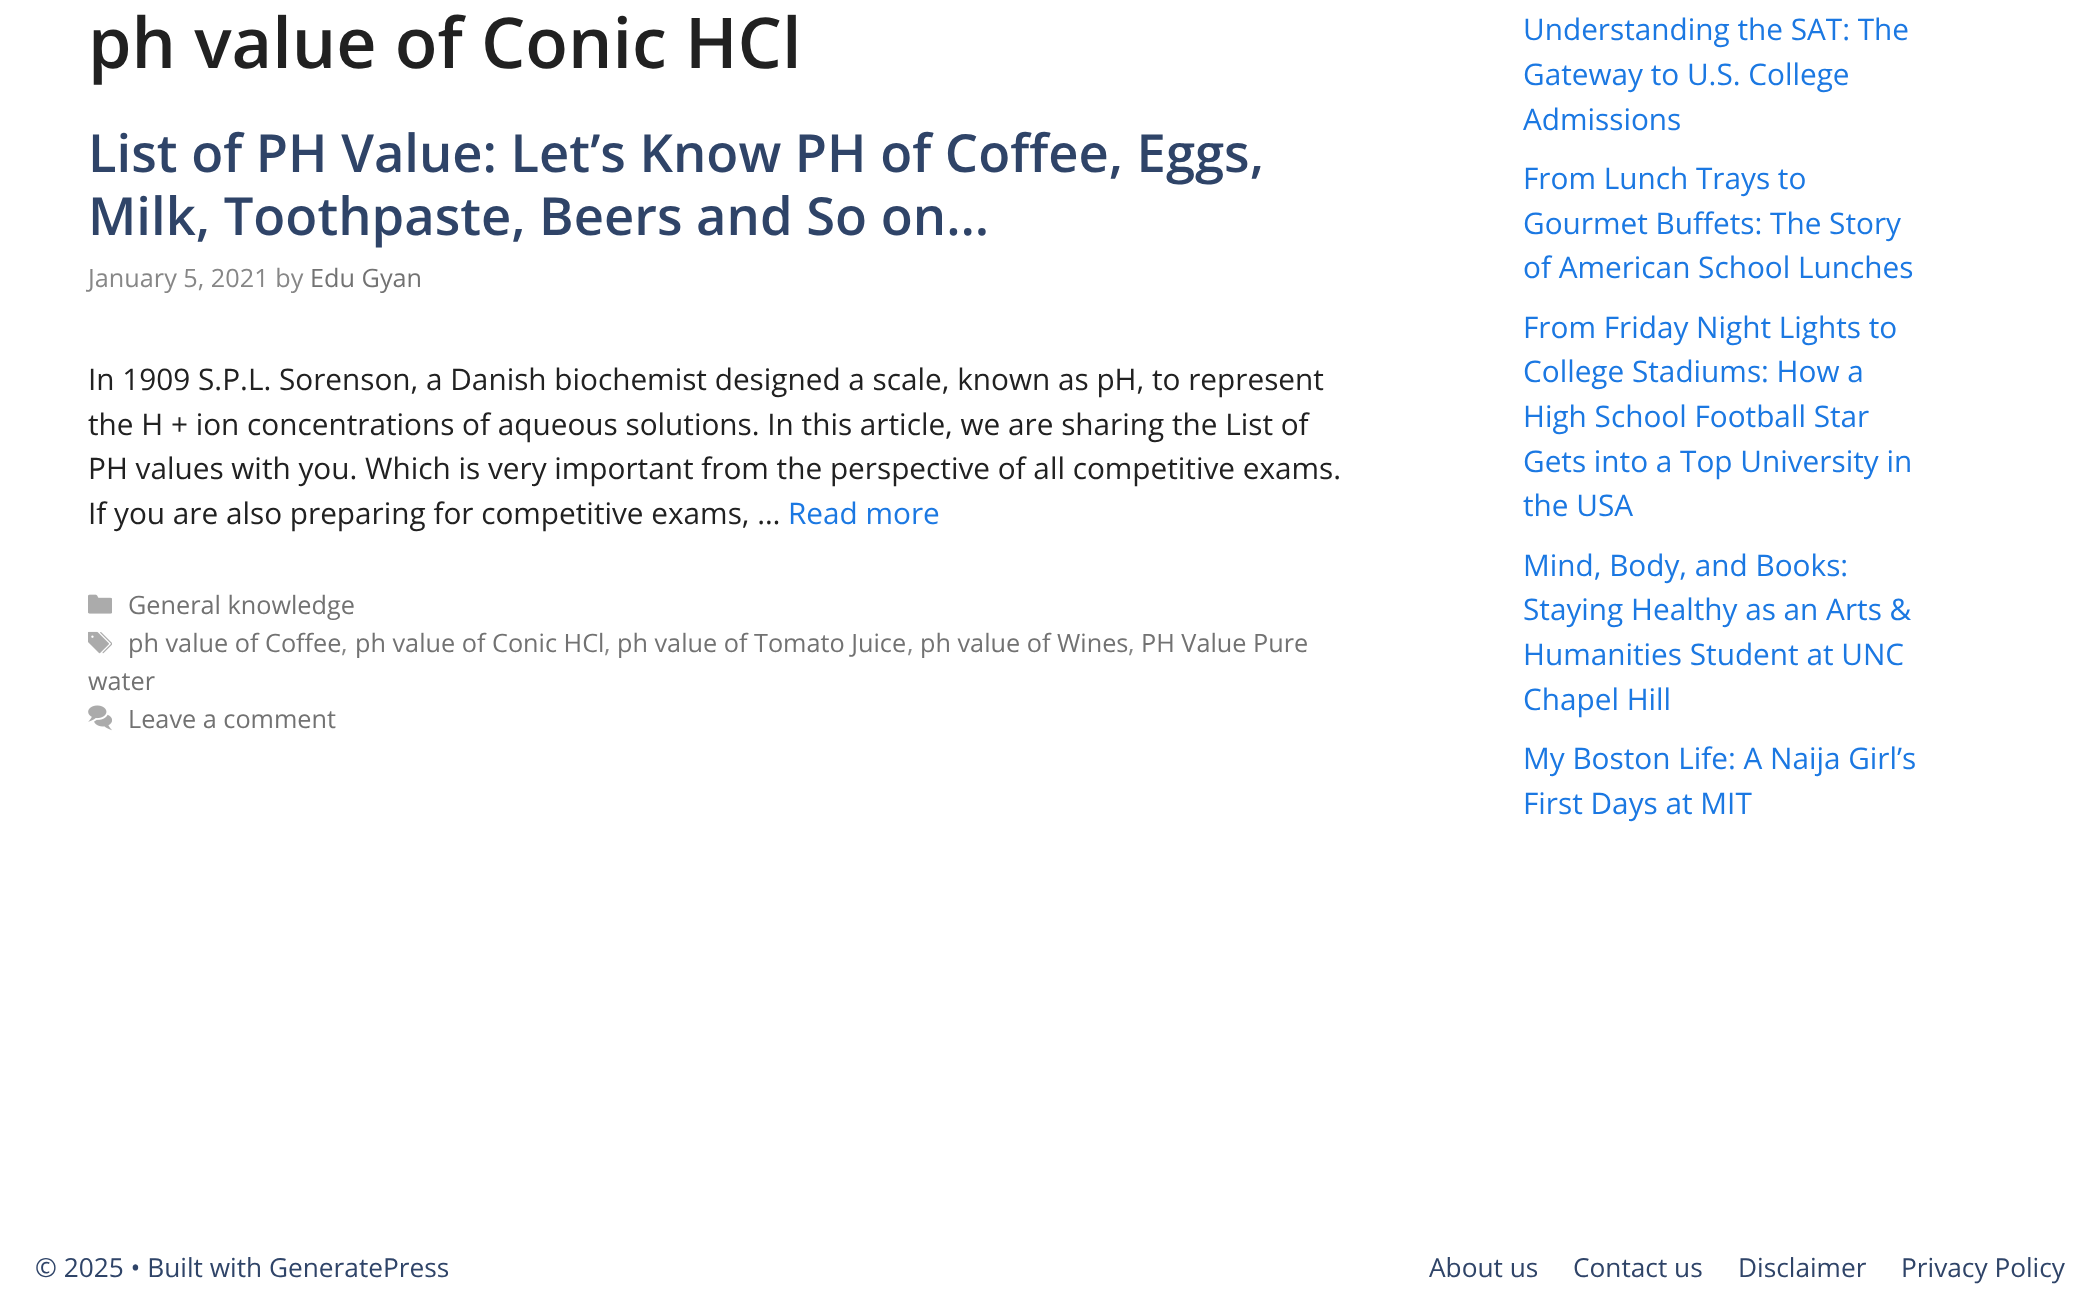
<svg xmlns="http://www.w3.org/2000/svg" xmlns:xlink="http://www.w3.org/1999/xlink" width="2099" height="1299" viewBox="0 0 2099 1299">
<style>
.cls-1{font:600 70px Open Sans;fill:#212121}
.cls-2{font:600 52.5px Open Sans;fill:#2f4468}
.cls-3{font:25.25px Open Sans;fill:#878787}
.cls-4{font:25.25px Open Sans;fill:#727272}
.cls-5{font:29.75px Open Sans;fill:#212121}
.cls-6{font:29.75px Open Sans;fill:#1b78e2}
.cls-7{font:26.25px Open Sans;fill:#2f4468}
</style>
<rect width="100%" height="100%" fill="#ffffff"/>
<image xlink:href="image0.png" x="88" y="594" width="24" height="20"/>
<image xlink:href="image1.png" x="88" y="631" width="24" height="23"/>
<image xlink:href="image2.png" x="88" y="705" width="24" height="26"/>
<text class="cls-1" x="88" y="68">ph value of Conic HCl</text>
<text class="cls-2"><tspan x="88" y="172">List of PH Value: Let’s Know PH of Coffee, Eggs,</tspan><tspan x="88" y="235">Milk, Toothpaste, Beers and So on…</tspan></text>
<text class="cls-3" x="88" y="287">January 5, 2021 by</text>
<text class="cls-4" x="310" y="287">Edu Gyan</text>
<text class="cls-5"><tspan x="88" y="390">In 1909 S.P.L. Sorenson, a Danish biochemist designed a scale, known as pH, to represent</tspan><tspan x="88" y="435">the H + ion concentrations of aqueous solutions. In this article, we are sharing the List of</tspan><tspan x="88" y="479">PH values with you. Which is very important from the perspective of all competitive exams.</tspan><tspan x="88" y="524">If you are also preparing for competitive exams, …</tspan></text>
<text class="cls-6" x="788" y="524">Read more</text>
<text class="cls-4"><tspan x="128" y="614">General knowledge</tspan><tspan x="128" y="652">ph value of Coffee</tspan></text>
<text class="cls-3" x="341" y="652">,</text>
<text class="cls-4" x="355" y="652">ph value of Conic HCl</text>
<text class="cls-3" x="604" y="652">,</text>
<text class="cls-4" x="617" y="652">ph value of Tomato Juice</text>
<text class="cls-3" x="907" y="652">,</text>
<text class="cls-4" x="920" y="652">ph value of Wines</text>
<text class="cls-3" x="1128" y="652">,</text>
<text class="cls-4" x="1141" y="652">PH Value Pure</text>
<text class="cls-4" x="88" y="690">water</text>
<text class="cls-4" x="128" y="728">Leave a comment</text>
<text class="cls-6"><tspan x="1523" y="40">Understanding the SAT: The</tspan><tspan x="1523" y="85">Gateway to U.S. College</tspan><tspan x="1523" y="130">Admissions</tspan><tspan x="1523" y="189">From Lunch Trays to</tspan><tspan x="1523" y="234">Gourmet Buffets: The Story</tspan><tspan x="1523" y="278">of American School Lunches</tspan></text>
<text class="cls-6"><tspan x="1523" y="338">From Friday Night Lights to</tspan><tspan x="1523" y="382">College Stadiums: How a</tspan><tspan x="1523" y="427">High School Football Star</tspan><tspan x="1523" y="472">Gets into a Top University in</tspan><tspan x="1523" y="516">the USA</tspan></text>
<text class="cls-6"><tspan x="1523" y="576">Mind, Body, and Books:</tspan><tspan x="1523" y="620">Staying Healthy as an Arts &amp;</tspan><tspan x="1523" y="665">Humanities Student at UNC</tspan><tspan x="1523" y="710">Chapel Hill</tspan><tspan x="1523" y="769">My Boston Life: A Naija Girl’s</tspan><tspan x="1523" y="814">First Days at MIT</tspan></text>
<text class="cls-7" x="35" y="1277">© 2025 • Built with GeneratePress</text>
<text class="cls-7" x="1429" y="1277">About us</text>
<text class="cls-7" x="1573" y="1277">Contact us</text>
<text class="cls-7" x="1738" y="1277">Disclaimer</text>
<text class="cls-7" x="1901" y="1277">Privacy Policy</text>
</svg>
